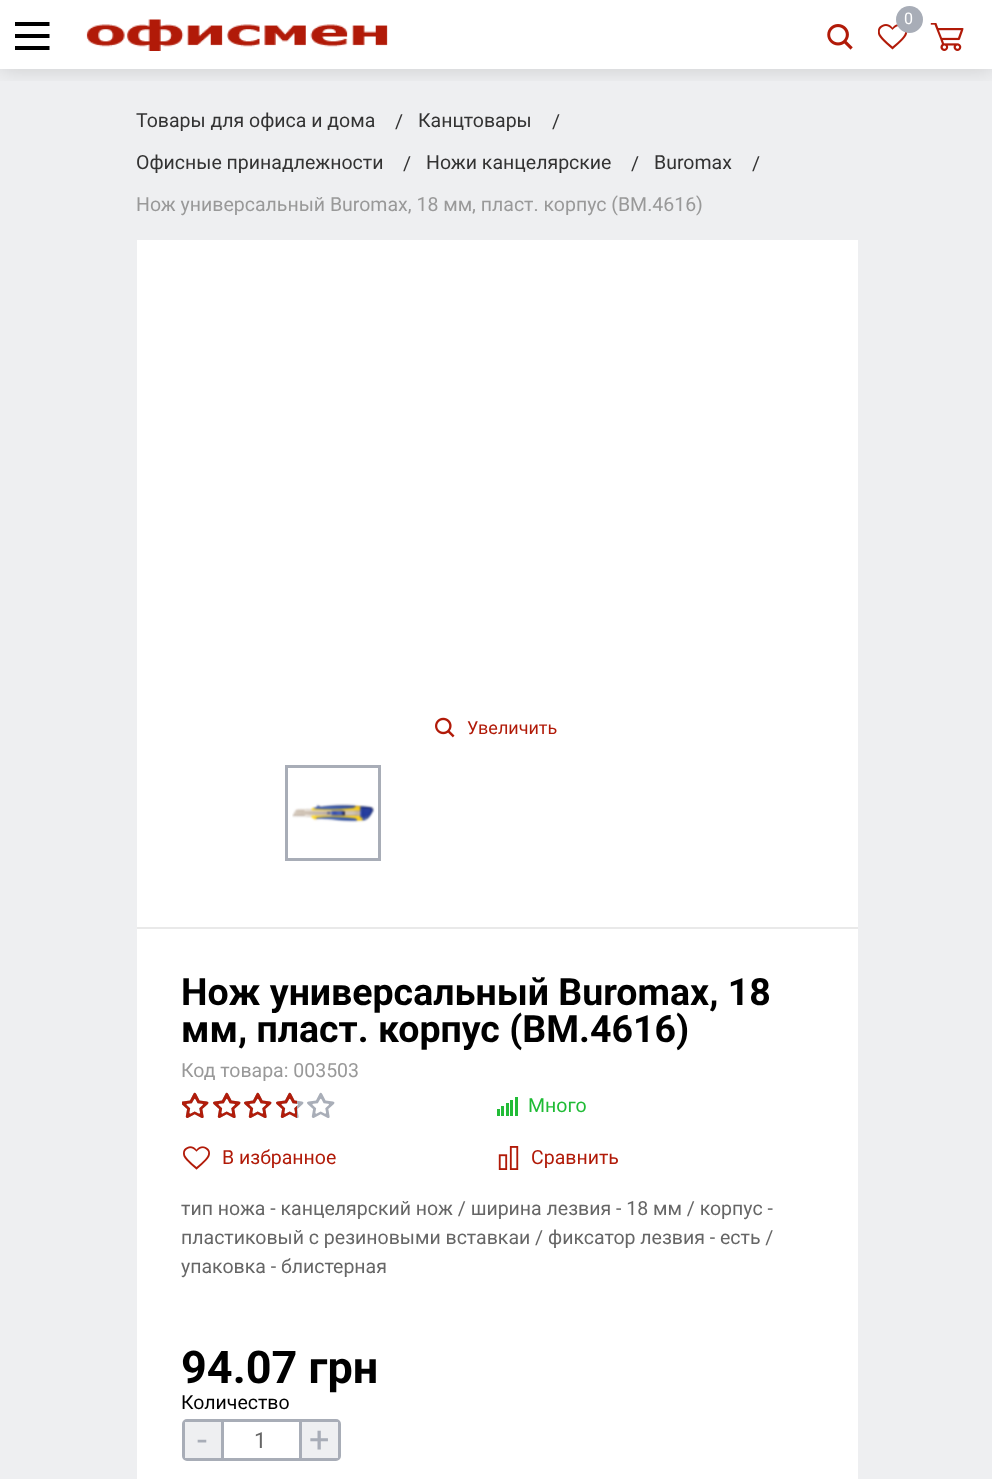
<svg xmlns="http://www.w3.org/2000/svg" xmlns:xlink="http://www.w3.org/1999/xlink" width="992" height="1479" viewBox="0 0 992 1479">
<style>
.cls-1{font:16px Roboto;fill:#ffffff}
.cls-2{font:19.5px Roboto;fill:#333333}
.cls-3{font:19.5px Roboto;fill:#999999}
.cls-4{font:18px Roboto;fill:#b11a08}
.cls-5{font:bold 37.5px Roboto;fill:#000000}
.cls-6{font:19.5px Roboto;fill:#1fbb35}
.cls-7{font:19.5px Roboto;fill:#b11a08}
.cls-8{font:19.5px Roboto;fill:#666666}
.cls-9{font:bold 45px Roboto;fill:#000000}
.cls-10{font:19.5px Roboto;fill:#000000}
.cls-11{font:36px Roboto;fill:#a8adb7}
.cls-12{font:22px Roboto;fill:#666666}
</style>
<defs>
<clipPath id="clip1"><rect x="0" y="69" width="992" height="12"/></clipPath>
</defs>
<rect width="100%" height="100%" fill="#ffffff"/>
<rect fill="#eeeff1" x="0" y="69" width="992" height="1410"/>
<g clip-path="url(#clip1)">
<rect fill="#050505" fill-opacity="0.15" filter="blur(11px)" x="0" y="0" width="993" height="69"/>
</g>
<path fill="#000000" fill-rule="evenodd" d="M15 50V46H49.5V50ZM15 34H49.5V38H15ZM15 22H49.5V26H15Z"/>
<image xlink:href="image0.png" x="86" y="19" width="302" height="32"/>
<image xlink:href="image1.png" x="878" y="24" width="30" height="26"/>
<circle fill="#a8adb7" cx="909.5" cy="19.5" r="13.5"/>
<image xlink:href="image2.png" x="827" y="24" width="26" height="26"/>
<image xlink:href="image3.png" x="930" y="23" width="34" height="28"/>
<rect fill="#ffffff" x="137" y="240" width="721" height="1239"/>
<rect fill="#e9e9e9" x="137" y="927" width="721" height="2"/>
<image xlink:href="image4.png" x="435" y="717" width="20" height="21"/>
<rect fill="none" stroke="#a8adb7" stroke-width="3" x="286.5" y="766.5" width="93" height="93"/>
<image xlink:href="image5.png" x="292" y="803" width="83" height="20"/>
<image xlink:href="image6.png" x="182" y="1092" width="153" height="26"/>
<image xlink:href="image7.png" x="182" y="1092" width="115" height="26"/>
<image xlink:href="image8.png" x="497" y="1097" width="21" height="19"/>
<image xlink:href="image9.png" x="497" y="1097" width="21" height="19"/>
<image xlink:href="image10.png" x="183" y="1146" width="27" height="24"/>
<image xlink:href="image11.png" x="498" y="1146" width="21" height="24"/>
<rect fill="none" stroke="#a8adb7" stroke-width="3" x="183.5" y="1420.5" width="156" height="39" rx="3.5"/>
<rect fill="#eeeff1" x="185" y="1422" width="36" height="36"/>
<rect fill="#a8adb7" x="299" y="1422" width="3" height="36"/>
<rect fill="#a8adb7" x="221" y="1422" width="3" height="36"/>
<rect fill="#eeeff1" x="302" y="1422" width="36" height="36"/>
<text class="cls-1" x="904" y="24">0</text>
<text class="cls-2" x="136" y="127">Товары для офиса и дома</text>
<text class="cls-2" x="395" y="128">/</text>
<text class="cls-2" x="418" y="127">Канцтовары</text>
<text class="cls-2" x="552" y="128">/</text>
<text class="cls-2" x="136" y="169">Офисные принадлежности</text>
<text class="cls-2" x="403" y="170">/</text>
<text class="cls-2" x="426" y="169">Ножи канцелярские</text>
<text class="cls-2" x="631" y="170">/</text>
<text class="cls-2" x="654" y="169">Buromax</text>
<text class="cls-2" x="752" y="170">/</text>
<text class="cls-3" x="136" y="211">Нож универсальный Buromax, 18 мм, пласт. корпус (BM.4616)</text>
<text class="cls-4" x="467" y="734">Увеличить</text>
<text class="cls-5"><tspan x="181" y="1005">Нож универсальный Buromax, 18</tspan><tspan x="181" y="1042">мм, пласт. корпус (BM.4616)</tspan></text>
<text class="cls-3" x="181" y="1077">Код товара: 003503</text>
<text class="cls-6" x="528" y="1112">Много</text>
<text class="cls-7" x="222" y="1164">В избранноe</text>
<text class="cls-7" x="531" y="1164">Сравнить</text>
<text class="cls-8"><tspan x="181" y="1215">тип ножа - канцелярский нож / ширина лезвия - 18 мм / корпус -</tspan><tspan x="181" y="1244">пластиковый с резиновыми вставкаи / фиксатор лезвия - есть /</tspan><tspan x="181" y="1273">упаковка - блистерная</tspan></text>
<text class="cls-9" x="181" y="1383">94.07 грн</text>
<text class="cls-10" x="181" y="1409">Количество</text>
<text class="cls-11" x="197" y="1452">-</text>
<text class="cls-12" x="254" y="1448">1</text>
<text class="cls-11" x="309" y="1452">+</text>
</svg>
